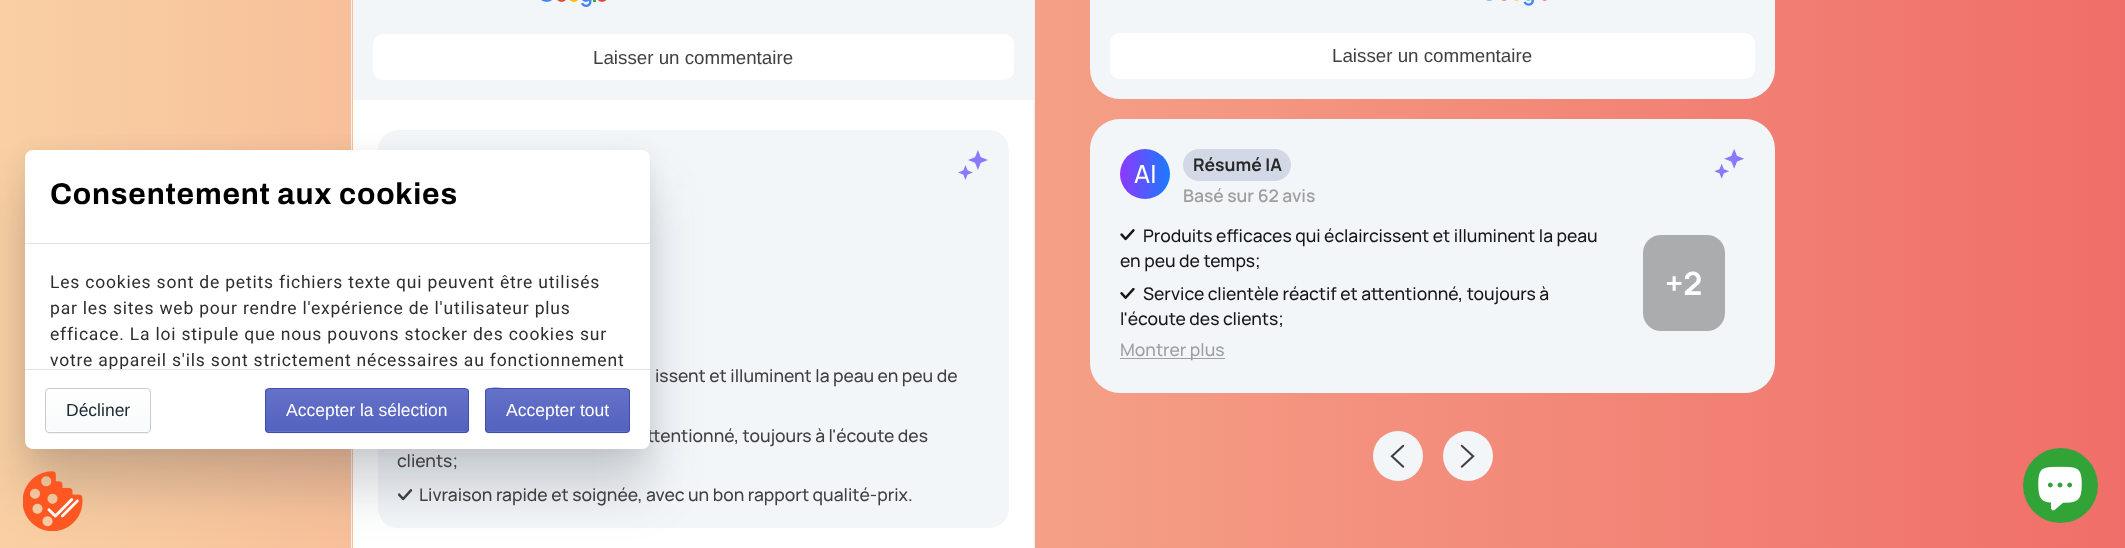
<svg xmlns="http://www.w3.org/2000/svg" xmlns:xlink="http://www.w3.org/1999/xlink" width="2125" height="548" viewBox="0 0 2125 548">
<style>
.cls-1{font:18.75px Liberation Sans;fill:#404040}
.cls-2{font:500 17.5px Manrope;fill:#404040}
.cls-3{font:17.5px Liberation Sans;fill:#ffffff}
.cls-4{font:17.5px Liberation Sans;fill:#212b36}
.cls-5{font:17.5px Roboto;letter-spacing:0.8px;fill:#2e2e2e}
.cls-6{font:bold 30px Archivo;letter-spacing:0.8px;fill:#000000}
.cls-7{font:500 25px Manrope;fill:#ffffff}
.cls-8{font:bold 17.5px Manrope;fill:#282828}
.cls-9{font:600 17.5px Manrope;fill:#9f9f9f}
.cls-10{font:500 17.5px Manrope;fill:#161616}
.cls-11{font:bold 32px Manrope;fill:#ffffff}
.cls-12{font:500 17.5px Manrope;fill:#9f9f9f}
</style>
<defs>
<linearGradient id="g1" gradientUnits="userSpaceOnUse" x1="2125" y1="274" x2="0" y2="274"><stop offset="0" stop-color="#f06e69"/><stop offset="1" stop-color="#f9d0a3"/></linearGradient>
<linearGradient id="g2" gradientUnits="userSpaceOnUse" x1="1120" y1="174" x2="1170" y2="174"><stop offset="0" stop-color="#8d38ff"/><stop offset="1" stop-color="#197bff"/></linearGradient>
<clipPath id="clip1"><rect x="485" y="388" width="145" height="45" rx="4"/></clipPath>
<linearGradient id="g3" gradientUnits="userSpaceOnUse" x1="558" y1="389" x2="558" y2="431"><stop offset="0" stop-color="#6371c7"/><stop offset="1" stop-color="#5563c1"/></linearGradient>
<linearGradient id="g4" gradientUnits="userSpaceOnUse" x1="558" y1="431" x2="558" y2="474"><stop offset="0" stop-color="#6371c7"/><stop offset="1" stop-color="#5563c1"/></linearGradient>
<clipPath id="clip2"><rect x="265" y="388" width="204" height="45" rx="4"/></clipPath>
<linearGradient id="g5" gradientUnits="userSpaceOnUse" x1="367" y1="389" x2="367" y2="431"><stop offset="0" stop-color="#6371c7"/><stop offset="1" stop-color="#5563c1"/></linearGradient>
<linearGradient id="g6" gradientUnits="userSpaceOnUse" x1="367" y1="431" x2="367" y2="474"><stop offset="0" stop-color="#6371c7"/><stop offset="1" stop-color="#5563c1"/></linearGradient>
<clipPath id="clip3"><rect x="45" y="388" width="106" height="45" rx="4"/></clipPath>
<linearGradient id="g7" gradientUnits="userSpaceOnUse" x1="98" y1="431" x2="98" y2="474"><stop offset="0" stop-color="#ffffff"/><stop offset="1" stop-color="#f9fafb"/></linearGradient>
<linearGradient id="g8" gradientUnits="userSpaceOnUse" x1="98" y1="389" x2="98" y2="431"><stop offset="0" stop-color="#ffffff"/><stop offset="1" stop-color="#f9fafb"/></linearGradient>
<clipPath id="clip4"><rect x="25" y="244" width="625" height="125"/></clipPath>
</defs>
<rect width="100%" height="100%" fill="#ffffff"/>
<rect fill="url(#g1)" x="0" y="0" width="2125" height="548"/>
<rect fill="none" stroke="#f0f0f7" x="351.5" y="-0.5" width="683" height="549"/>
<rect fill="#ffffff" x="353" y="100" width="681" height="448"/>
<rect fill="#f3f6f9" x="378" y="130" width="631" height="398" rx="20"/>
<rect fill="#202a36" fill-opacity="0.08" filter="blur(10px)" x="25" y="153" width="625" height="298" rx="8"/>
<image xlink:href="image3.png" x="398" y="489" width="15" height="12"/>
<rect fill="#202a35" fill-opacity="0.2" filter="blur(25.5px)" x="25" y="189" width="625" height="299" rx="8"/>
<image xlink:href="image0.png" x="23" y="471" width="60" height="60"/>
<rect fill="#f3f6f9" x="353" y="0" width="681" height="100"/>
<image xlink:href="image1.png" x="541" y="0" width="66" height="7"/>
<rect fill="#ffffff" x="373" y="34" width="641" height="46" rx="10"/>
<image xlink:href="image2.png" x="958" y="150" width="30" height="30"/>
<rect fill="#f3f6f9" x="1090" y="-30" width="685" height="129" rx="30"/>
<image xlink:href="image4.png" x="1486" y="0" width="61" height="6"/>
<rect fill="#ffffff" x="1110" y="33" width="645" height="46" rx="10"/>
<rect fill="#f3f6f9" x="1090" y="119" width="685" height="274" rx="30"/>
<circle fill="url(#g2)" cx="1145" cy="174" r="25"/>
<rect fill="#d3d8e7" x="1183" y="149" width="108" height="32" rx="16"/>
<image xlink:href="image5.png" x="1715" y="149" width="29" height="30"/>
<image xlink:href="image6.png" x="1120" y="229" width="15" height="12"/>
<image xlink:href="image7.png" x="1120" y="288" width="15" height="11"/>
<rect fill="#aaacae" x="1643" y="235" width="82" height="96" rx="18"/>
<rect fill="#9f9f9f" x="1120" y="358" width="105" height="1"/>
<circle fill="#f3f6f9" cx="1398" cy="456" r="25"/>
<image xlink:href="image8.png" x="1390" y="444" width="15" height="24"/>
<circle fill="#f3f6f9" cx="1468" cy="456" r="25"/>
<image xlink:href="image9.png" x="1460" y="444" width="15" height="24"/>
<circle fill="#32a337" cx="2060.5" cy="485.5" r="37.5"/>
<image xlink:href="image10.png" x="2038" y="466" width="44" height="45"/>
<text class="cls-1" x="593" y="64">Laisser un commentaire</text>
<text class="cls-2" x="655" y="382">issent et illuminent la peau en peu de</text>
<text class="cls-2" x="647" y="442">ttentionné, toujours à l'écoute des</text>
<rect fill="#ffffff" x="25" y="150" width="625" height="299" rx="8"/>
<path fill="#f3f4f4" d="M485 429V430C485 432 487 434 489 434H626C628 434 630 432 630 430V429C630 431 628 432 626 432H489L486 431Z"/>
<g clip-path="url(#clip1)">
<rect fill="url(#g3)" x="485" y="389" width="145" height="42"/>
</g>
<path fill="#6774c8" d="M489 390H626C628 390 629 391 629 392L628 390L626 389H512C509 389 486 384 486 392C486 391 487 390 489 390Z"/>
<g clip-path="url(#clip1)">
<rect fill="url(#g4)" x="485" y="431" width="145" height="2"/>
</g>
<rect fill="none" stroke="#3f4eae" x="485.5" y="388.5" width="144" height="44" rx="3.5"/>
<text class="cls-3" x="506" y="416">Accepter tout</text>
<path fill="#f3f4f4" d="M265 429V430C265 432 267 434 269 434H465C467 434 469 432 469 430V392V429C469 431 467 432 465 432H269C267 432 265 431 265 429Z"/>
<g clip-path="url(#clip2)">
<rect fill="url(#g5)" x="265" y="389" width="204" height="42"/>
</g>
<path fill="#6774c8" d="M269 390H465C466 390 468 391 468 392V390L466 389H268C267 389 266 390 266 392C266 391 267 390 269 390Z"/>
<g clip-path="url(#clip2)">
<rect fill="url(#g6)" x="265" y="431" width="204" height="2"/>
</g>
<rect fill="none" stroke="#3f4eae" x="265.5" y="388.5" width="203" height="44" rx="3.5"/>
<text class="cls-3" x="286" y="416">Accepter la sélection</text>
<path fill="#f3f4f4" d="M45 429V430C45 432 47 434 49 434H147C149 434 151 432 151 430C151 431 150 432 149 432H49L46 431Z"/>
<g clip-path="url(#clip3)">
<rect fill="url(#g7)" x="45" y="431" width="106" height="2"/>
<rect fill="url(#g8)" x="45" y="389" width="106" height="42"/>
</g>
<rect fill="none" stroke="#c4cdd5" x="45.5" y="388.5" width="105" height="44" rx="3.5"/>
<text class="cls-4" x="66" y="416">Décliner</text>
<g clip-path="url(#clip4)">
<text class="cls-5" x="50" y="366">votre appareil s'ils sont strictement nécessaires au fonctionnement</text>
</g>
<text class="cls-5" x="50" y="340">efficace. La loi stipule que nous pouvons stocker des cookies sur</text>
<text class="cls-5" x="50" y="314">par les sites web pour rendre l'expérience de l'utilisateur plus</text>
<text class="cls-5" x="50" y="288">Les cookies sont de petits fichiers texte qui peuvent être utilisés</text>
<rect fill="#dfe3e8" x="25" y="369" width="625" height="1"/>
<text class="cls-6" x="50" y="204">Consentement aux cookies</text>
<rect fill="#dfe3e8" x="25" y="243" width="625" height="1"/>
<text class="cls-2" x="397" y="467">clients;</text>
<text class="cls-2" x="419" y="501">Livraison rapide et soignée, avec un bon rapport qualité-prix.</text>
<text class="cls-1" x="1332" y="62">Laisser un commentaire</text>
<text class="cls-7" x="1134" y="183">AI</text>
<text class="cls-8" x="1193" y="171">Résumé IA</text>
<text class="cls-9" x="1183" y="202">Basé sur 62 avis</text>
<text class="cls-10" x="1143" y="242">Produits efficaces qui éclaircissent et illuminent la peau</text>
<text class="cls-10" x="1120" y="267">en peu de temps;</text>
<text class="cls-10" x="1143" y="300">Service clientèle réactif et attentionné, toujours à</text>
<text class="cls-10" x="1120" y="325">l'écoute des clients;</text>
<text class="cls-11" x="1665" y="295">+2</text>
<text class="cls-12" x="1120" y="356">Montrer plus</text>
</svg>
